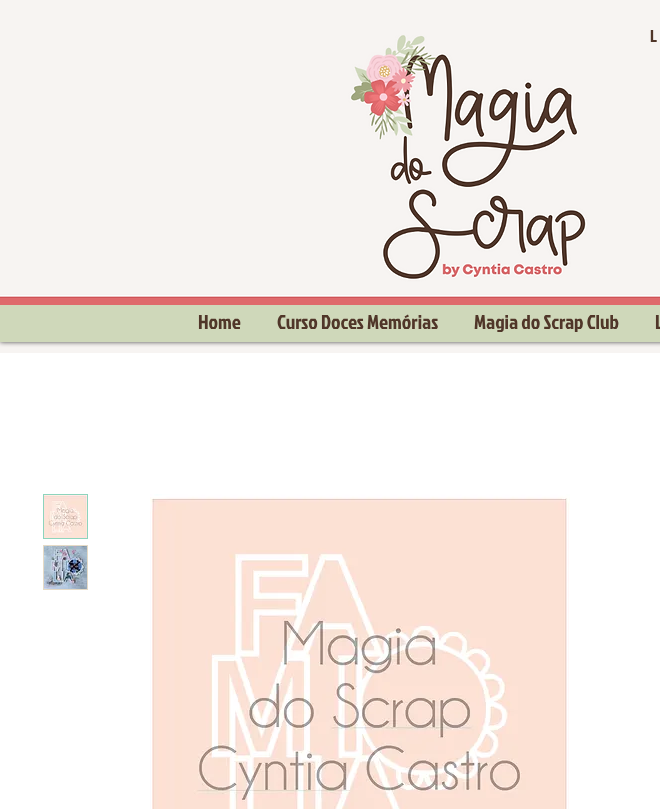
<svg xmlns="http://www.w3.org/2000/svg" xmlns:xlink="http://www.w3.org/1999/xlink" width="660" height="809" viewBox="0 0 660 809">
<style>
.cls-1{font:17px Jockey One;fill:#503629}
.cls-2{font:20px Jockey One;fill:#503629}
</style>
<rect width="100%" height="100%" fill="#ffffff"/>
<rect fill="#f7f4f2" x="0" y="0" width="660" height="353"/>
<rect fill="#000000" fill-opacity="0.7" filter="blur(2.5px)" x="0" y="301" width="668" height="41"/>
<image xlink:href="image0.png" x="0" y="35" width="660" height="270"/>
<rect fill="#cfd8ba" x="0" y="305" width="660" height="37"/>
<rect fill="none" stroke="#8dd4bd" x="43.5" y="494.5" width="44" height="44"/>
<image xlink:href="image1.png" x="44" y="495" width="43" height="43"/>
<rect fill="none" stroke="#e5dac6" x="43.5" y="545.5" width="44" height="44"/>
<image xlink:href="image2.png" x="44" y="546" width="43" height="43"/>
<image xlink:href="image3.png" x="150" y="494" width="420" height="315"/>
<text class="cls-1" x="650" y="42">L</text>
<text class="cls-2" x="198" y="329">Home</text>
<text class="cls-2" x="277" y="329">Curso Doces Memórias</text>
<text class="cls-2" x="474" y="329">Magia do Scrap Club</text>
<text class="cls-2" x="655" y="329">L</text>
</svg>
